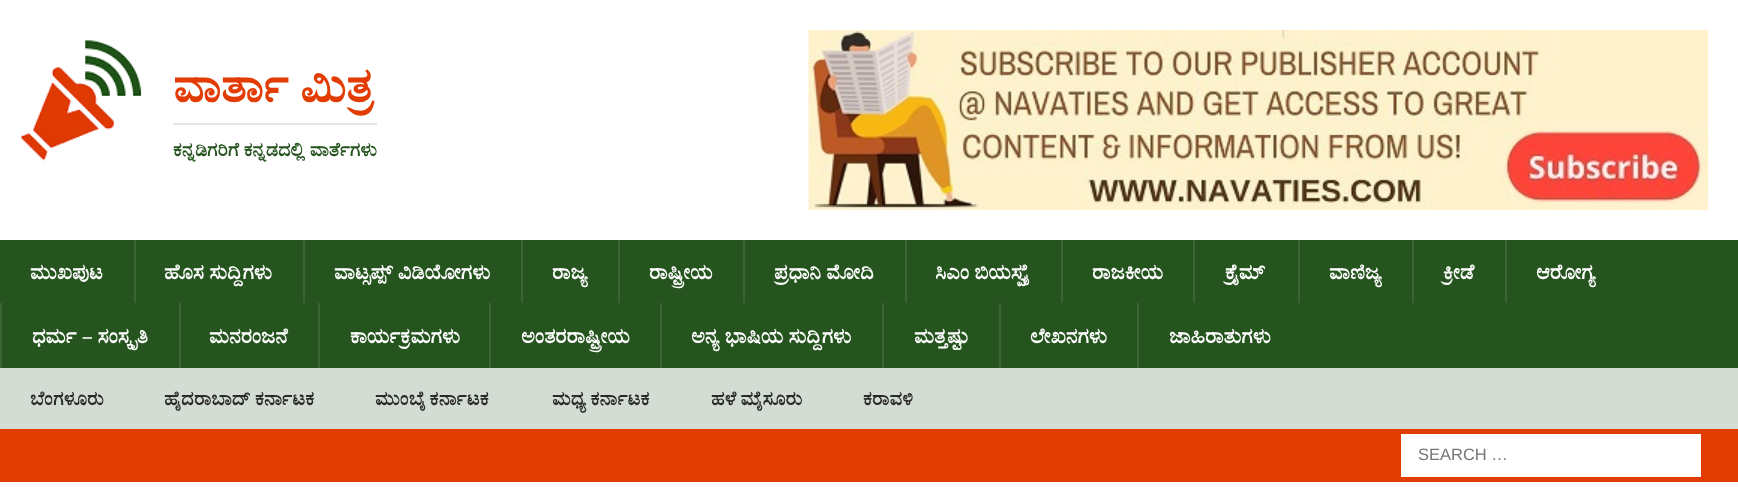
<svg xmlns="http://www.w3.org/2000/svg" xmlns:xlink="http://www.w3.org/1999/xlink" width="1738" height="502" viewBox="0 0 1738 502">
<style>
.cls-1{font:bold 48px FreeSerif;fill:#e23c03}
.cls-2{font:bold 19.25px FreeSerif;fill:#26541f}
.cls-3{font:bold 21px FreeSerif;fill:#ffffff}
.cls-4{font:bold 19.5px FreeSerif;letter-spacing:0.25px;fill:#2a2a2a}
.cls-5{font:16.5px Liberation Sans;fill:#757575}
</style>
<rect width="100%" height="100%" fill="#ffffff"/>
<image xlink:href="image0.png" x="20" y="40" width="122" height="121"/>
<rect fill="#e5e5e5" x="173" y="123" width="204" height="2"/>
<image xlink:href="image1.png" x="808" y="30" width="901" height="180"/>
<rect fill="#26541f" x="0" y="240" width="1738" height="128"/>
<rect fill="#3c6535" x="134" y="240" width="2" height="63"/>
<rect fill="#3c6535" x="303" y="240" width="2" height="63"/>
<rect fill="#3c6535" x="521" y="240" width="2" height="63"/>
<rect fill="#3c6535" x="618" y="240" width="2" height="63"/>
<rect fill="#3c6535" x="743" y="240" width="2" height="63"/>
<rect fill="#3c6535" x="905" y="240" width="2" height="63"/>
<rect fill="#3c6535" x="1061" y="240" width="2" height="63"/>
<rect fill="#3c6535" x="1193" y="240" width="2" height="63"/>
<rect fill="#3c6535" x="1298" y="240" width="2" height="63"/>
<rect fill="#3c6535" x="1412" y="240" width="2" height="63"/>
<rect fill="#3c6535" x="1505" y="240" width="2" height="63"/>
<rect fill="#3c6535" x="0" y="303" width="2" height="65"/>
<rect fill="#3c6535" x="179" y="303" width="2" height="65"/>
<rect fill="#3c6535" x="318" y="303" width="2" height="65"/>
<rect fill="#3c6535" x="489" y="303" width="2" height="65"/>
<rect fill="#3c6535" x="660" y="303" width="2" height="65"/>
<rect fill="#3c6535" x="882" y="303" width="2" height="65"/>
<rect fill="#3c6535" x="999" y="303" width="2" height="65"/>
<rect fill="#3c6535" x="1137" y="303" width="2" height="65"/>
<rect fill="#d4ddd3" x="0" y="368" width="1738" height="61"/>
<rect fill="#e23c03" x="0" y="429" width="1738" height="53"/>
<rect fill="#ffffff" x="1401" y="434" width="300" height="43"/>
<text class="cls-1" x="173" y="102">ವಾರ್ತಾ ಮಿತ್ರ</text>
<text class="cls-2" x="173" y="156">ಕನ್ನಡಿಗರಿಗೆ ಕನ್ನಡದಲ್ಲಿ ವಾರ್ತೆಗಳು</text>
<text class="cls-3" x="30" y="279">ಮುಖಪುಟ</text>
<text class="cls-3" x="164" y="279">ಹೊಸ ಸುದ್ದಿಗಳು</text>
<text class="cls-3" x="334" y="279">ವಾಟ್ಸಪ್ಪ್ ವಿಡಿಯೋಗಳು</text>
<text class="cls-3" x="552" y="279">ರಾಜ್ಯ</text>
<text class="cls-3" x="649" y="279">ರಾಷ್ಟ್ರೀಯ</text>
<text class="cls-3" x="774" y="279">ಪ್ರಧಾನಿ ಮೋದಿ</text>
<text class="cls-3" x="935" y="279">ಸಿಎಂ ಬಿಯಸ್ವೈ</text>
<text class="cls-3" x="1092" y="279">ರಾಜಕೀಯ</text>
<text class="cls-3" x="1225" y="279">ಕ್ರೈಮ್</text>
<text class="cls-3" x="1329" y="279">ವಾಣಿಜ್ಯ</text>
<text class="cls-3" x="1443" y="279">ಕ್ರೀಡೆ</text>
<text class="cls-3" x="1536" y="279">ಆರೋಗ್ಯ</text>
<text class="cls-3" x="32" y="343">ಧರ್ಮ – ಸಂಸ್ಕೃತಿ</text>
<text class="cls-3" x="209" y="343">ಮನರಂಜನೆ</text>
<text class="cls-3" x="350" y="343">ಕಾರ್ಯಕ್ರಮಗಳು</text>
<text class="cls-3" x="521" y="343">ಅಂತರರಾಷ್ಟ್ರೀಯ</text>
<text class="cls-3" x="691" y="343">ಅನ್ಯ ಭಾಷಿಯ ಸುದ್ದಿಗಳು</text>
<text class="cls-3" x="914" y="343">ಮತ್ತಷ್ಟು</text>
<text class="cls-3" x="1030" y="343">ಲೇಖನಗಳು</text>
<text class="cls-3" x="1169" y="343">ಜಾಹಿರಾತುಗಳು</text>
<text class="cls-4" x="30" y="405">ಬೆಂಗಳೂರು</text>
<text class="cls-4" x="164" y="405" word-spacing="-1">ಹೈದರಾಬಾದ್ ಕರ್ನಾಟಕ</text>
<text class="cls-4" x="375" y="405" word-spacing="-1">ಮುಂಬೈ ಕರ್ನಾಟಕ</text>
<text class="cls-4" x="552" y="405" word-spacing="-1">ಮಧ್ಯ ಕರ್ನಾಟಕ</text>
<text class="cls-4" x="711" y="405" word-spacing="-1">ಹಳೆ ಮೈಸೂರು</text>
<text class="cls-4" x="863" y="405">ಕರಾವಳಿ</text>
<text class="cls-5" x="1418" y="460">SEARCH …</text>
</svg>
